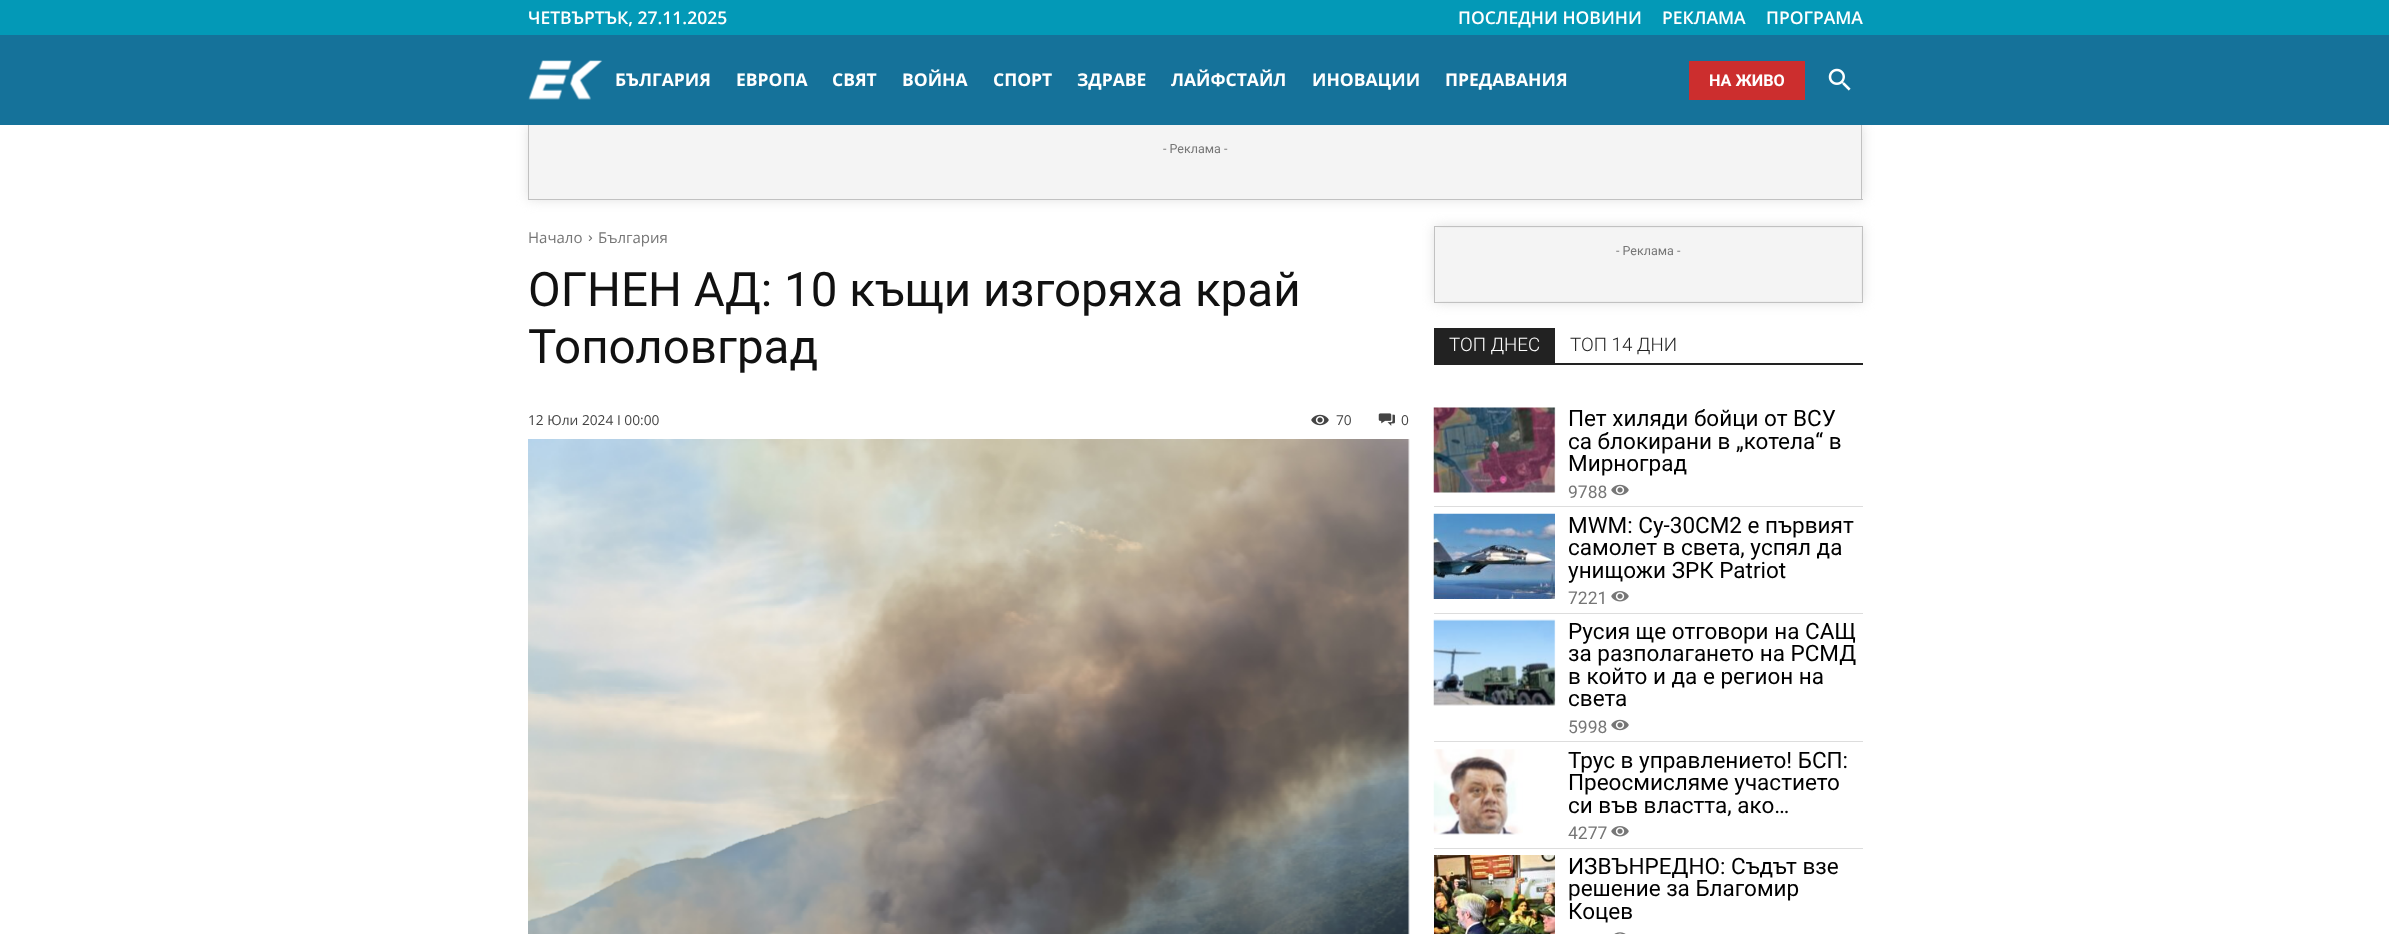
<svg xmlns="http://www.w3.org/2000/svg" xmlns:xlink="http://www.w3.org/1999/xlink" width="2389" height="934" viewBox="0 0 2389 934">
<style>
.cls-1{font:600 17.5px Open Sans;fill:#ffffff}
.cls-2{font:bold 17.5px Open Sans;fill:#ffffff}
.cls-3{font:bold 16.25px Roboto;fill:#ffffff}
.cls-4{font:12.5px Roboto;fill:#767676}
.cls-5{font:15px Open Sans;fill:#767676}
.cls-6{font:47.5px Roboto;fill:#111111}
.cls-7{font:13.75px Open Sans;fill:#444444}
.cls-8{font:300 18.75px Roboto;fill:#ffffff}
.cls-9{font:300 18.75px Roboto;fill:#222222}
.cls-10{font:22.5px Roboto;fill:#000000}
.cls-11{font:17.5px Roboto;fill:#767676}
</style>
<rect width="100%" height="100%" fill="#ffffff"/>
<rect fill="#0399b7" x="0" y="0" width="2389" height="35"/>
<rect fill="#e2e2e2" filter="blur(6px)" x="528" y="125" width="1335" height="75"/>
<rect fill="#15729a" x="0" y="35" width="2389" height="90"/>
<image xlink:href="image0.png" x="528" y="60" width="75" height="40"/>
<rect fill="#cc2e2e" x="1689" y="61" width="116" height="39"/>
<image xlink:href="image1.png" x="1828" y="68" width="23" height="23"/>
<rect fill="#c1c1c1" x="1861" y="125" width="1" height="75"/>
<rect fill="#c1c1c1" x="528" y="199" width="1335" height="1"/>
<rect fill="#c1c1c1" x="528" y="125" width="1" height="75"/>
<rect fill="#f4f4f4" x="529" y="125" width="1332" height="74"/>
<image xlink:href="image2.png" x="588" y="235" width="5" height="7"/>
<image xlink:href="image3.png" x="1311" y="414" width="18" height="12"/>
<image xlink:href="image4.png" x="1378" y="413" width="17" height="13"/>
<image xlink:href="image5.png" x="528" y="439" width="882" height="495"/>
<rect fill="#e2e2e2" filter="blur(6px)" x="1434" y="226" width="429" height="77"/>
<rect fill="none" stroke="#c1c1c1" x="1434.5" y="226.5" width="428" height="76"/>
<rect fill="#f4f4f4" x="1435" y="228" width="426" height="73"/>
<rect fill="#222222" x="1434" y="328" width="121" height="37"/>
<rect fill="#222222" x="1555" y="363" width="308" height="2"/>
<rect fill="#dddddd" x="1434" y="506" width="429" height="1"/>
<image xlink:href="image6.png" x="1433" y="407" width="123" height="86"/>
<image xlink:href="image7.png" x="1611" y="484" width="18" height="12"/>
<rect fill="#dddddd" x="1434" y="613" width="429" height="1"/>
<image xlink:href="image8.png" x="1433" y="513" width="122" height="86"/>
<image xlink:href="image9.png" x="1611" y="591" width="18" height="11"/>
<rect fill="#dddddd" x="1434" y="741" width="429" height="1"/>
<image xlink:href="image10.png" x="1433" y="619" width="123" height="87"/>
<image xlink:href="image7.png" x="1611" y="719" width="18" height="12"/>
<rect fill="#dddddd" x="1434" y="848" width="429" height="1"/>
<image xlink:href="image11.png" x="1433" y="749" width="90" height="86"/>
<image xlink:href="image9.png" x="1611" y="826" width="18" height="11"/>
<image xlink:href="image12.png" x="1434" y="855" width="121" height="79"/>
<image xlink:href="image13.png" x="1614" y="932" width="12" height="2"/>
<text class="cls-1" x="528" y="24">ЧЕТВЪРТЪК, 27.11.2025</text>
<text class="cls-1" x="1458" y="24">ПОСЛЕДНИ НОВИНИ</text>
<text class="cls-1" x="1662" y="24">РЕКЛАМА</text>
<text class="cls-1" x="1766" y="24">ПРОГРАМА</text>
<text class="cls-2" x="615" y="86">БЪЛГАРИЯ</text>
<text class="cls-2" x="736" y="86">ЕВРОПА</text>
<text class="cls-2" x="832" y="86">СВЯТ</text>
<text class="cls-2" x="902" y="86">ВОЙНА</text>
<text class="cls-2" x="993" y="86">СПОРТ</text>
<text class="cls-2" x="1077" y="86">ЗДРАВЕ</text>
<text class="cls-2" x="1171" y="86">ЛАЙФСТАЙЛ</text>
<text class="cls-2" x="1312" y="86">ИНОВАЦИИ</text>
<text class="cls-2" x="1445" y="86">ПРЕДАВАНИЯ</text>
<text class="cls-3" x="1709" y="86">НА ЖИВО</text>
<text class="cls-4" x="1163" y="153">- Реклама -</text>
<text class="cls-5" x="528" y="243">Начало</text>
<text class="cls-5" x="598" y="243">България</text>
<text class="cls-6"><tspan x="528" y="306">ОГНЕН АД: 10 къщи изгоряха край</tspan><tspan x="528" y="363">Тополовград</tspan></text>
<text class="cls-7" x="528" y="425">12 Юли 2024 I 00:00</text>
<text class="cls-7" x="1336" y="425">70</text>
<text class="cls-7" x="1401" y="425">0</text>
<text class="cls-4" x="1616" y="255">- Реклама -</text>
<text class="cls-8" x="1449" y="351">ТОП ДНЕС</text>
<text class="cls-9" x="1570" y="351">ТОП 14 ДНИ</text>
<text class="cls-10"><tspan x="1568" y="426">Пет хиляди бойци от ВСУ</tspan><tspan x="1568" y="449">са блокирани в „котела“ в</tspan><tspan x="1568" y="471">Мирноград</tspan></text>
<text class="cls-11" x="1568" y="498">9788</text>
<text class="cls-10"><tspan x="1568" y="533">MWM: Су-30СМ2 е първият</tspan><tspan x="1568" y="555">самолет в света, успял да</tspan><tspan x="1568" y="578">унищожи ЗРК Patriot</tspan></text>
<text class="cls-11" x="1568" y="604">7221</text>
<text class="cls-10"><tspan x="1568" y="639">Русия ще отговори на САЩ</tspan><tspan x="1568" y="661">за разполагането на РСМД</tspan><tspan x="1568" y="684">в който и да е регион на</tspan><tspan x="1568" y="706">света</tspan></text>
<text class="cls-11" x="1568" y="733">5998</text>
<text class="cls-10"><tspan x="1568" y="768">Трус в управлението! БСП:</tspan><tspan x="1568" y="790">Преосмисляме участието</tspan><tspan x="1568" y="813">си във властта, ако…</tspan></text>
<text class="cls-11" x="1568" y="839">4277</text>
<text class="cls-10"><tspan x="1568" y="874">ИЗВЪНРЕДНО: Съдът взе</tspan><tspan x="1568" y="896">решение за Благомир</tspan><tspan x="1568" y="919">Коцев</tspan></text>
</svg>
